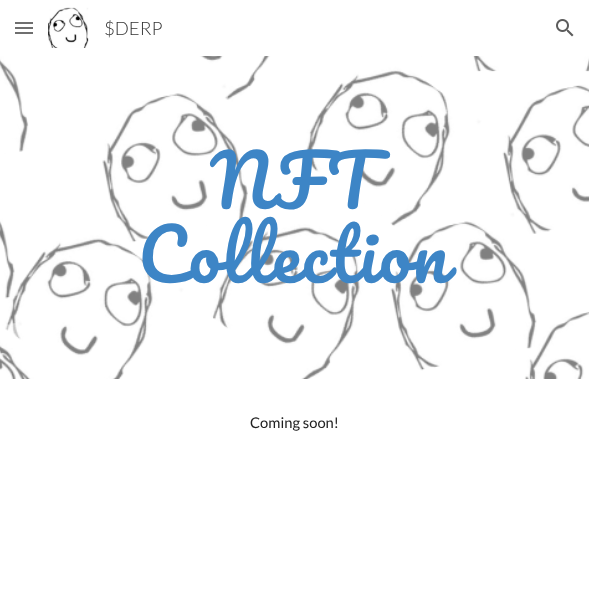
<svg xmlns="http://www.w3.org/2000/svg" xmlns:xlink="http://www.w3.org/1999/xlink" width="589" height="589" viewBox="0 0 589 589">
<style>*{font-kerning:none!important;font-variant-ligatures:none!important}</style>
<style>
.cls-1{font:300 18.5px Lato;fill:#333333}
.cls-2{font:70.5px Pacifico;letter-spacing:2px;fill:#3d85c6}
.cls-3{font:14.75px Lato;fill:#212121}
</style>
<rect width="100%" height="100%" fill="#ffffff"/>
<rect fill="#5c5c5c" x="15" y="22" width="18" height="2"/>
<rect fill="#5c5c5c" x="15" y="27" width="18" height="2"/>
<rect fill="#5c5c5c" x="15" y="32" width="18" height="2"/>
<rect fill="#ffffff" fill-opacity="0.12" x="15" y="22" width="18" height="12"/>
<image xlink:href="image0.png" x="48" y="7" width="41" height="41"/>
<image xlink:href="image1.png" x="556" y="19" width="18" height="18"/>
<image xlink:href="image2.png" x="0" y="56" width="589" height="323"/>
<text class="cls-1" x="104" y="35">$DERP</text>
<text class="cls-2" x="210" y="209">NFT</text>
<text class="cls-2" x="138" y="283">Collection</text>
<text class="cls-3" x="250" y="428">Coming soon!</text>
</svg>
